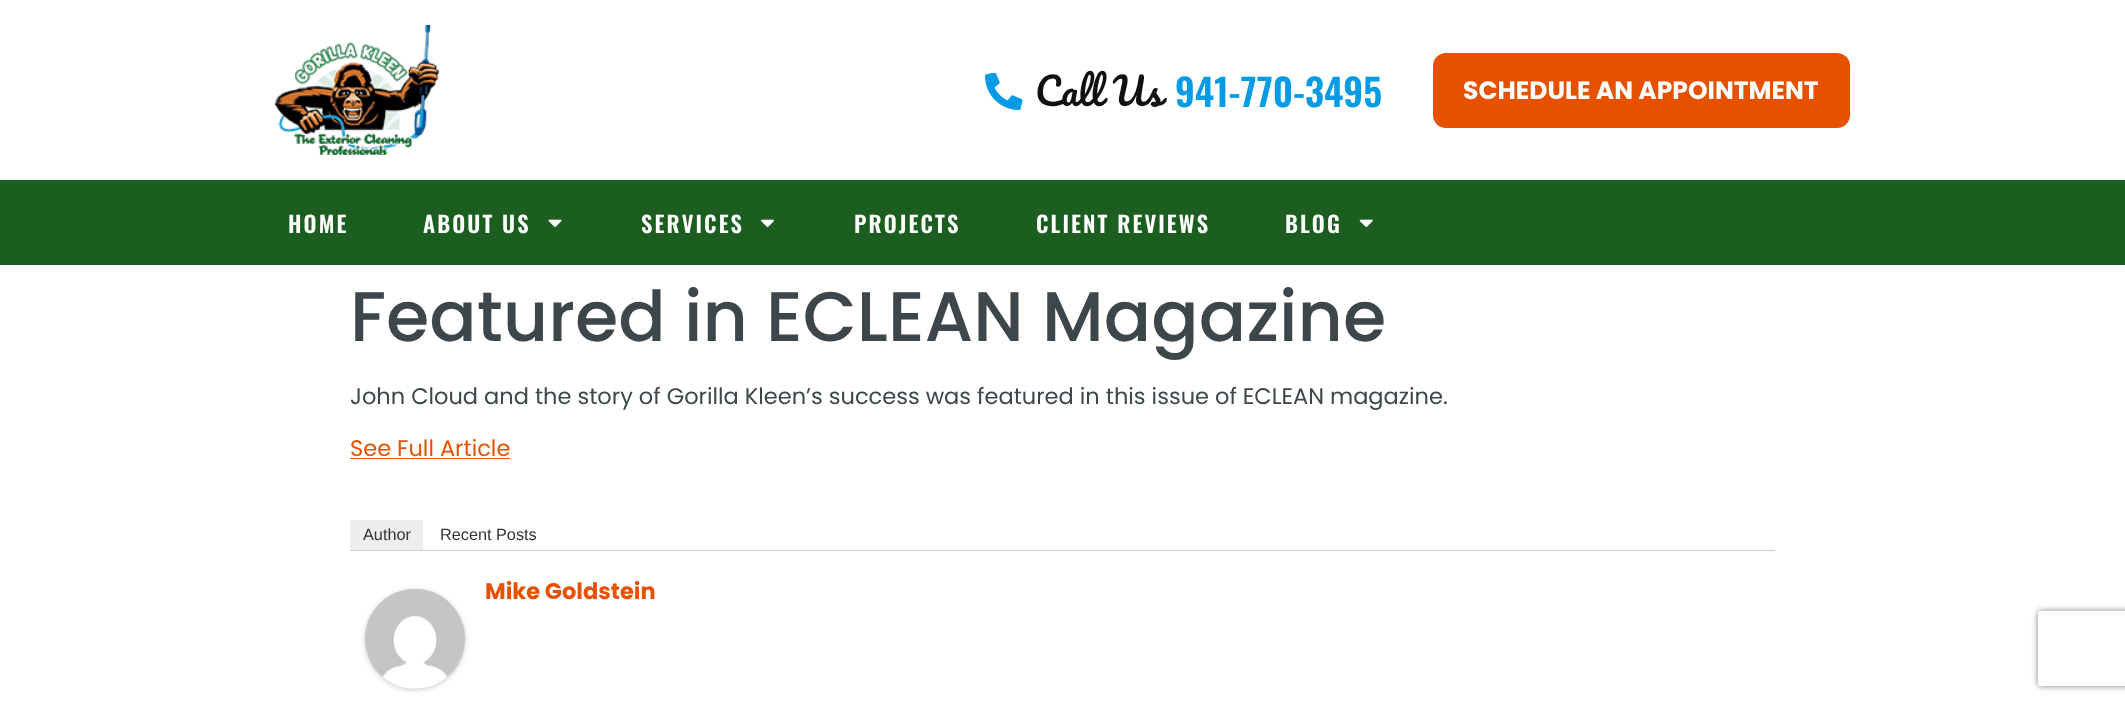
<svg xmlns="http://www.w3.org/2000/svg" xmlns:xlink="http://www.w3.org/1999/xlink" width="2125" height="703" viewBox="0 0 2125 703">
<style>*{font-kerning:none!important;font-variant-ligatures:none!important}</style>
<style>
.cls-1{font:37.5px Pacifico;fill:#111111}
.cls-2{font:600 37.5px Oswald;fill:#039be5}
.cls-3{font:bold 25px Poppins;fill:#ffffff}
.cls-4{font:600 22.5px Oswald;letter-spacing:2.1px;fill:#ffffff}
.cls-5{font:500 70px Poppins;fill:#3d464b}
.cls-6{font:22.5px Poppins;fill:#3d464b}
.cls-7{font:22.5px Poppins;fill:#e65100}
.cls-8{font:16.25px Liberation Sans;fill:#333333}
.cls-9{font:bold 22.5px Poppins;fill:#e65100}
</style>
<defs>
<clipPath id="clip1"><path d="M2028 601H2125V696H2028ZM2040.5 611H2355.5C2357 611 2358 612 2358 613.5V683.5C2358 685 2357 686 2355.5 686H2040.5C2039 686 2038 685 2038 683.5V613.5C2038 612 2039 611 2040.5 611Z" clip-rule="evenodd"/></clipPath>
</defs>
<rect width="100%" height="100%" fill="#ffffff"/>
<image xlink:href="image0.png" x="275" y="25" width="164" height="130"/>
<image xlink:href="image1.png" x="985" y="73" width="38" height="37"/>
<rect fill="#e65100" x="1433" y="53" width="417" height="75" rx="13"/>
<rect fill="#1b5e20" x="0" y="180" width="2125" height="85"/>
<image xlink:href="image2.png" x="548" y="219" width="14" height="8"/>
<image xlink:href="image3.png" x="761" y="219" width="13" height="8"/>
<image xlink:href="image4.png" x="1359" y="219" width="14" height="8"/>
<rect fill="#e65100" x="350" y="458" width="160" height="1"/>
<rect fill="#cccccc" x="350" y="550" width="1425" height="1"/>
<rect fill="#eeeeee" x="350" y="520" width="73" height="30"/>
<rect fill="#000000" fill-opacity="0.2" filter="blur(2.5px)" x="365" y="590" width="100" height="100" rx="50"/>
<image xlink:href="image5.png" x="365" y="589" width="100" height="100"/>
<g clip-path="url(#clip1)">
<rect fill="#808080" filter="blur(3px)" x="2038" y="611" width="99" height="75" rx="2.5"/>
</g>
<text class="cls-1" x="1035" y="106">Call Us</text>
<text class="cls-2" x="1175" y="107">941-770-3495</text>
<text class="cls-3" x="1463" y="99">SCHEDULE AN APPOINTMENT</text>
<text class="cls-4" x="288" y="233">HOME</text>
<text class="cls-4" x="423" y="233">ABOUT US</text>
<text class="cls-4" x="641" y="233">SERVICES</text>
<text class="cls-4" x="854" y="233">PROJECTS</text>
<text class="cls-4" x="1036" y="233">CLIENT REVIEWS</text>
<text class="cls-4" x="1285" y="233">BLOG</text>
<text class="cls-5" x="350" y="341">Featured in ECLEAN Magazine</text>
<text class="cls-6" x="350" y="404">John Cloud and the story of Gorilla Kleen’s success was featured in this issue of ECLEAN magazine.</text>
<text class="cls-7" x="350" y="456">See Full Article</text>
<text class="cls-8" x="363" y="540">Author</text>
<text class="cls-8" x="440" y="540">Recent Posts</text>
<text class="cls-9" x="485" y="599">Mike Goldstein</text>
</svg>
